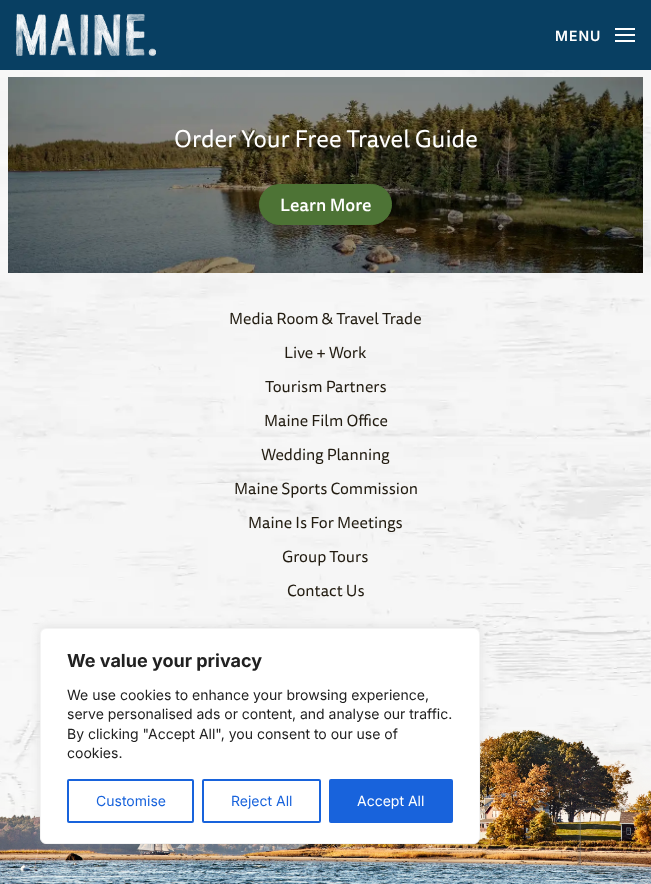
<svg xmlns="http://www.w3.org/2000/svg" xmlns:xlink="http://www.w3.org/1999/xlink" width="651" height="884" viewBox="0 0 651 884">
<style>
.cls-1{font:600 14px Inter;letter-spacing:1px;fill:#ffffff}
.cls-2{font:24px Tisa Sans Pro;fill:#ffffff}
.cls-3{font:500 17.5px Tisa Sans Pro;fill:#ffffff}
.cls-4{font:16px Tisa Sans Pro;fill:#231d12}
.cls-5{font:bold 18px Inter;fill:#212121}
.cls-6{font:14px Inter;fill:#212121}
.cls-7{font:14px Inter;fill:#1863dc}
.cls-8{font:14px Inter;fill:#ffffff}
</style>
<defs>
<clipPath id="clip1"><path d="M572 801H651V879H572ZM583 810H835C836 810 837 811 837 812V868C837 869 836 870 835 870H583C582 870 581 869 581 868V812C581 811 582 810 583 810Z" clip-rule="evenodd"/></clipPath>
</defs>
<rect width="100%" height="100%" fill="#ffffff"/>
<image xlink:href="image0.png" x="0" y="70" width="651" height="792"/>
<rect fill="#083f62" x="0" y="0" width="651" height="70"/>
<image xlink:href="image1.png" x="16" y="13" width="140" height="43"/>
<rect fill="#ffffff" x="615" y="28" width="20" height="2"/>
<rect fill="#ffffff" x="615" y="34" width="20" height="2"/>
<rect fill="#ffffff" x="615" y="40" width="20" height="2"/>
<image xlink:href="image2.png" x="8" y="77" width="635" height="196"/>
<rect fill="#4d7335" stroke="#4d7335" x="259.5" y="184.5" width="132" height="40" rx="20"/>
<image xlink:href="image3.png" x="0" y="729" width="651" height="155"/>
<rect fill="#acabab" fill-opacity="0.3" filter="blur(5px)" x="40" y="627" width="440" height="216" rx="6"/>
<rect fill="#ffffff" stroke="#f4f4f4" x="40.5" y="628.5" width="439" height="215" rx="5.5"/>
<rect fill="none" stroke="#1863dc" stroke-width="2" x="68" y="780" width="125" height="42" rx="1"/>
<rect fill="none" stroke="#1863dc" stroke-width="2" x="203" y="780" width="117" height="42" rx="1"/>
<rect fill="#1863dc" stroke="#1863dc" stroke-width="2" x="330" y="780" width="122" height="42" rx="1"/>
<g clip-path="url(#clip1)">
<rect fill="#808080" filter="blur(2.5px)" x="581" y="810" width="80" height="60" rx="2"/>
</g>
<text class="cls-1" x="555" y="41">MENU</text>
<text class="cls-2" x="174" y="147">Order Your Free Travel Guide</text>
<text class="cls-3" x="280" y="211">Learn More</text>
<text class="cls-4" x="229" y="324">Media Room &amp; Travel Trade</text>
<text class="cls-4" x="284" y="358">Live + Work</text>
<text class="cls-4" x="265" y="392">Tourism Partners</text>
<text class="cls-4" x="264" y="426">Maine Film Office</text>
<text class="cls-4" x="261" y="460">Wedding Planning</text>
<text class="cls-4" x="234" y="494">Maine Sports Commission</text>
<text class="cls-4" x="248" y="528">Maine Is For Meetings</text>
<text class="cls-4" x="282" y="562">Group Tours</text>
<text class="cls-4" x="287" y="596">Contact Us</text>
<text class="cls-5" x="67" y="667">We value your privacy</text>
<text class="cls-6"><tspan x="67" y="700">We use cookies to enhance your browsing experience,</tspan><tspan x="67" y="719">serve personalised ads or content, and analyse our traffic.</tspan><tspan x="67" y="739">By clicking "Accept All", you consent to our use of</tspan><tspan x="67" y="758">cookies.</tspan></text>
<text class="cls-7" x="96" y="806">Customise</text>
<text class="cls-7" x="231" y="806">Reject All</text>
<text class="cls-8" x="357" y="806">Accept All</text>
</svg>
